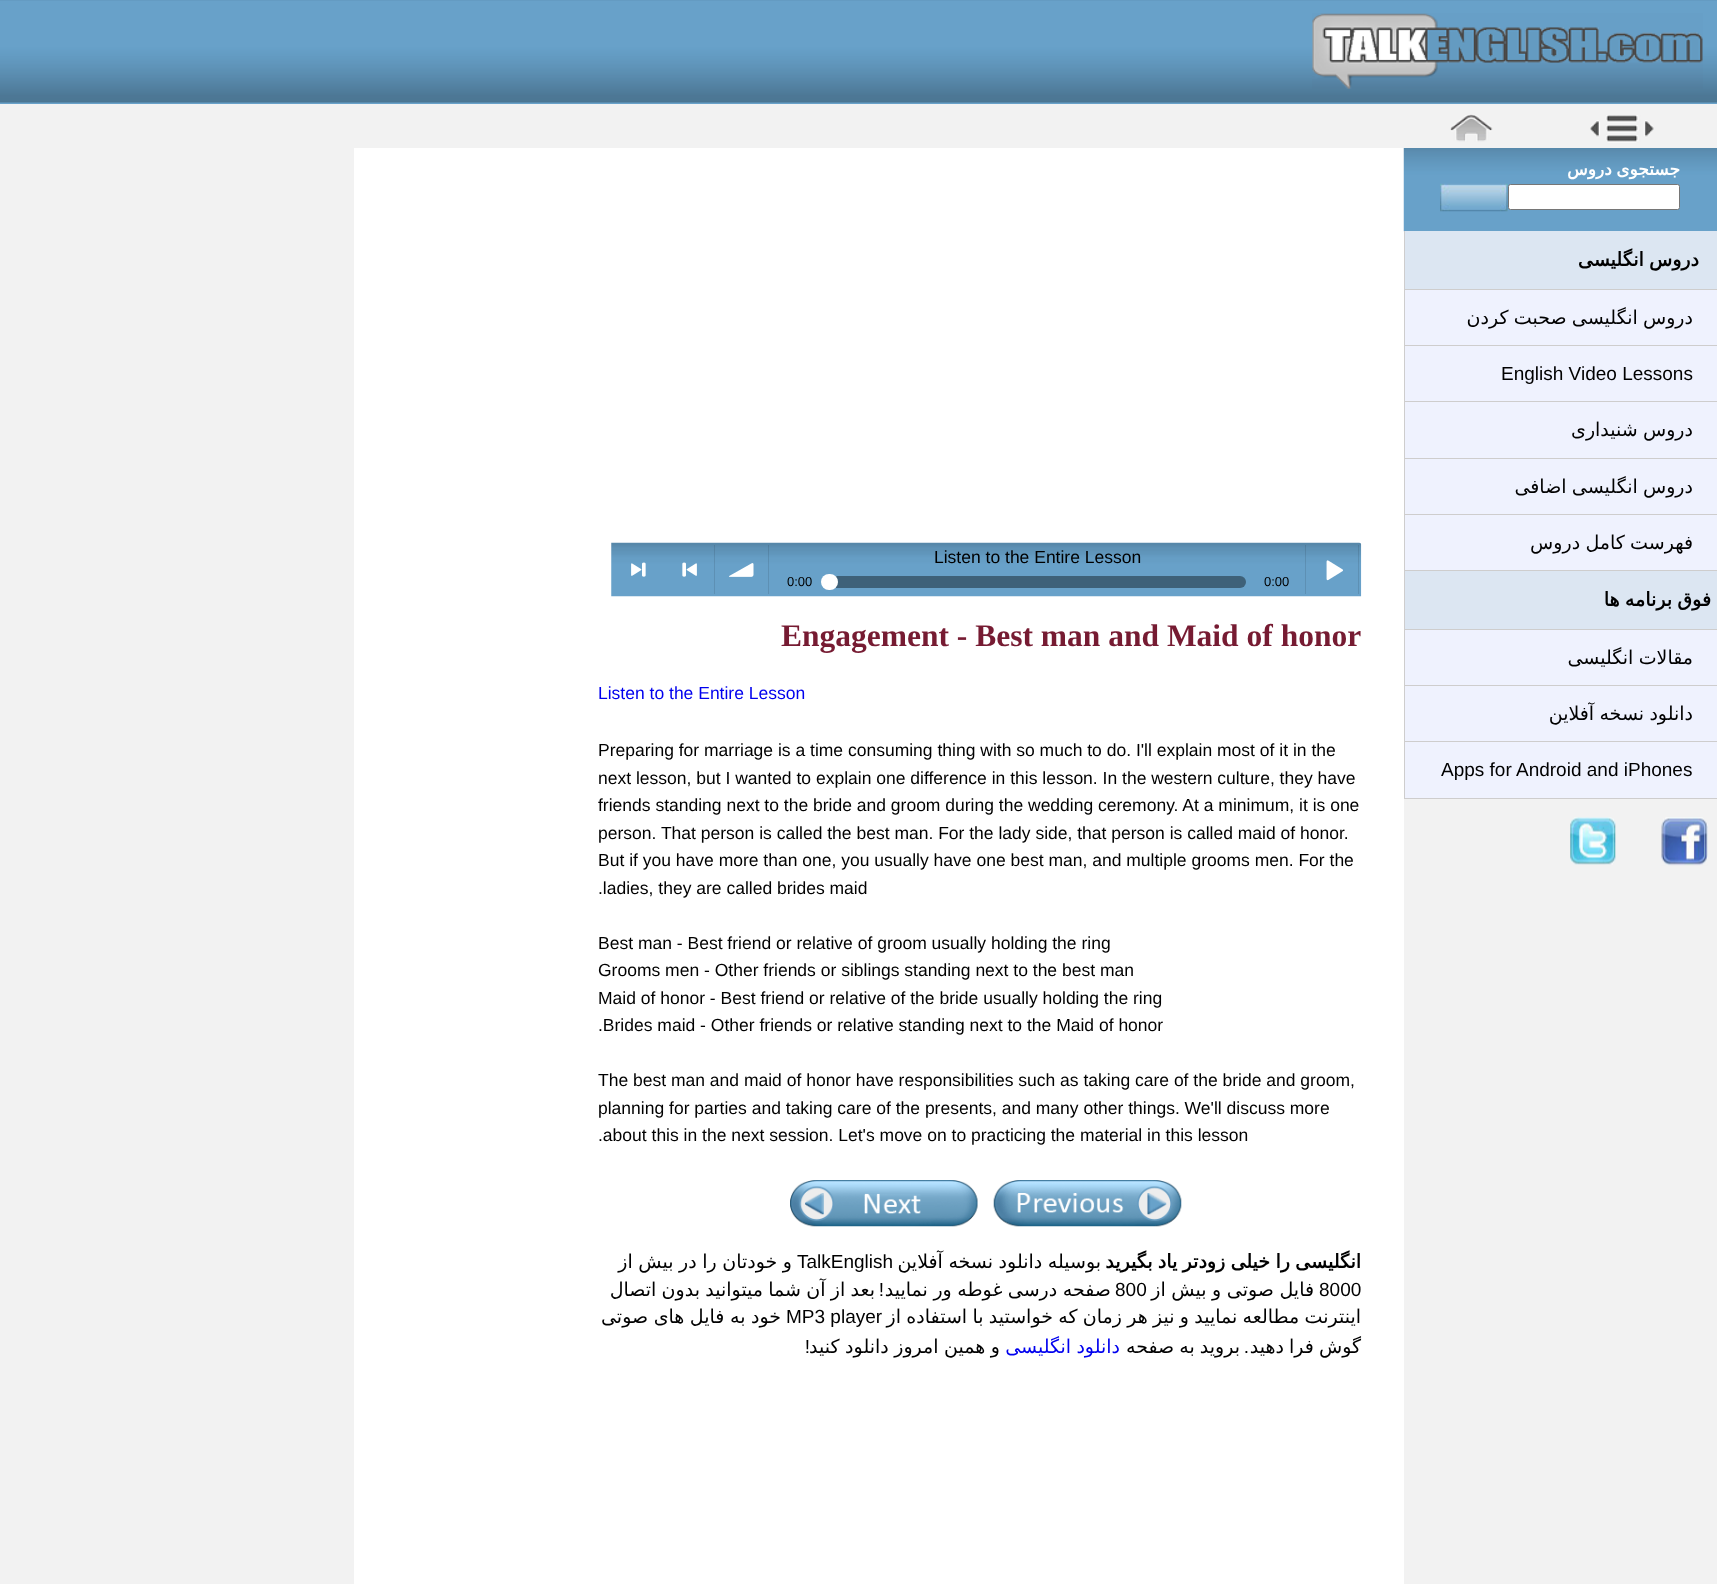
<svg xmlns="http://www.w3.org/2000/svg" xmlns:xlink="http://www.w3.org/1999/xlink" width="1717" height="1584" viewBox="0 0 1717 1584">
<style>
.cls-1{font:bold 17px DejaVu Sans;direction:rtl;fill:#ffffff}
.cls-2{font:bold 19px DejaVu Sans;direction:rtl;fill:#000000}
.cls-3{font:19px DejaVu Sans;direction:rtl;fill:#000000}
.cls-4{font:19px Liberation Sans;fill:#000000}
.cls-5{font:17.5px Liberation Sans;fill:#000000}
.cls-6{font:13px Liberation Sans;fill:#000000}
.cls-7{font:bold 31.5px Liberation Serif;fill:#761b32}
.cls-8{font:17.5px Liberation Sans;fill:#0000ee}
.cls-9{font:19px Liberation Sans;direction:rtl;fill:#000000}
.cls-10{font:19px DejaVu Sans;direction:rtl;fill:#0000ee}
</style>
<rect width="100%" height="100%" fill="#f2f2f2"/>
<rect fill="#68a1c9" x="0" y="103" width="1717" height="1"/>
<image xlink:href="image0.png" x="0" y="0" width="1717" height="103"/>
<image xlink:href="image1.png" x="1312" y="13" width="391" height="76"/>
<image xlink:href="image2.png" x="1450" y="114" width="43" height="28"/>
<image xlink:href="image3.png" x="1590" y="115" width="64" height="28"/>
<rect fill="#ffffff" x="354" y="148" width="1050" height="1436"/>
<image xlink:href="image4.png" x="1403" y="148" width="314" height="84"/>
<image xlink:href="image5.png" x="1440" y="183" width="68" height="29"/>
<rect fill="#ffffff" stroke="#767676" x="1508.5" y="184.5" width="171" height="25" rx="2"/>
<rect fill="#dce6f2" x="1405" y="231" width="312" height="58"/>
<rect fill="#cecdcd" x="1404" y="289" width="313" height="1"/>
<rect fill="#cecdcd" x="1404" y="231" width="1" height="59"/>
<rect fill="#eff2fe" x="1405" y="290" width="312" height="508"/>
<rect fill="#cecdcd" x="1404" y="345" width="313" height="1"/>
<rect fill="#cecdcd" x="1404" y="290" width="1" height="56"/>
<rect fill="#cecdcd" x="1404" y="401" width="313" height="1"/>
<rect fill="#cecdcd" x="1404" y="346" width="1" height="57"/>
<rect fill="#cecdcd" x="1404" y="458" width="313" height="1"/>
<rect fill="#cecdcd" x="1404" y="403" width="1" height="56"/>
<rect fill="#cecdcd" x="1404" y="514" width="313" height="1"/>
<rect fill="#cecdcd" x="1404" y="459" width="1" height="56"/>
<rect fill="#cecdcd" x="1404" y="570" width="313" height="1"/>
<rect fill="#cecdcd" x="1404" y="515" width="1" height="56"/>
<rect fill="#dce6f2" x="1405" y="571" width="312" height="58"/>
<rect fill="#cecdcd" x="1404" y="629" width="313" height="1"/>
<rect fill="#cecdcd" x="1404" y="571" width="1" height="59"/>
<rect fill="#cecdcd" x="1404" y="685" width="313" height="1"/>
<rect fill="#cecdcd" x="1404" y="630" width="1" height="56"/>
<rect fill="#cecdcd" x="1404" y="741" width="313" height="1"/>
<rect fill="#cecdcd" x="1404" y="686" width="1" height="57"/>
<rect fill="#cecdcd" x="1404" y="798" width="313" height="1"/>
<rect fill="#cecdcd" x="1404" y="743" width="1" height="56"/>
<image xlink:href="image6.png" x="1570" y="817" width="46" height="48"/>
<image xlink:href="image7.png" x="1661" y="817" width="47" height="49"/>
<image xlink:href="image8.png" x="611" y="542" width="751" height="55"/>
<image xlink:href="image9.png" x="631" y="562" width="15" height="15"/>
<rect fill="#000000" fill-opacity="0.1" x="714" y="545" width="1" height="49"/>
<image xlink:href="image10.png" x="682" y="562" width="15" height="15"/>
<rect fill="#000000" fill-opacity="0.1" x="768" y="545" width="1" height="49"/>
<image xlink:href="image11.png" x="729" y="563" width="25" height="14"/>
<rect fill="#000000" fill-opacity="0.1" x="1305" y="545" width="1" height="49"/>
<rect fill="#3e6179" x="829" y="576" width="417" height="12" rx="6"/>
<rect fill="#ffffff" x="821" y="574" width="17" height="16" rx="8"/>
<rect fill="#000000" fill-opacity="0.1" x="1358" y="545" width="1" height="49"/>
<image xlink:href="image12.png" x="1326" y="560" width="17" height="21"/>
<image xlink:href="image13.png" x="790" y="1180" width="188" height="47"/>
<image xlink:href="image14.png" x="993" y="1180" width="189" height="47"/>
<text class="cls-1" x="1680" y="175" word-spacing="-1">جستجوی دروس</text>
<text class="cls-2" x="1699" y="266" word-spacing="-0.75">دروس انگلیسی</text>
<text class="cls-3" x="1693" y="324" word-spacing="-0.75">دروس انگلیسی صحبت کردن</text>
<text class="cls-4" x="1501" y="380">English Video Lessons</text>
<text class="cls-3" x="1693" y="436" word-spacing="-0.75">دروس شنیداری</text>
<text class="cls-3" x="1693" y="493" word-spacing="-0.75">دروس انگلیسی اضافی</text>
<text class="cls-3" x="1693" y="549" word-spacing="-0.75">فهرست کامل دروس</text>
<text class="cls-2" x="1711" y="606" word-spacing="-0.75">فوق برنامه ها</text>
<text class="cls-3" x="1693" y="664" word-spacing="-0.75">مقالات انگلیسی</text>
<text class="cls-3" x="1693" y="720" word-spacing="-0.75">دانلود نسخه آفلاین</text>
<text class="cls-4" x="1441" y="776">Apps for Android and iPhones</text>
<text class="cls-5" x="934" y="563">Listen to the Entire Lesson</text>
<text class="cls-6" x="787" y="586">0:00</text>
<text class="cls-6" x="1264" y="586">0:00</text>
<text class="cls-7" x="781" y="646">Engagement - Best man and Maid of honor</text>
<text class="cls-8" x="598" y="699">Listen to the Entire Lesson</text>
<text class="cls-5"><tspan x="598" y="756">Preparing for marriage is a time consuming thing with so much to do. I'll explain most of it in the</tspan><tspan x="598" y="784">next lesson, but I wanted to explain one difference in this lesson. In the western culture, they have</tspan><tspan x="598" y="811">friends standing next to the bride and groom during the wedding ceremony. At a minimum, it is one</tspan><tspan x="598" y="839">person. That person is called the best man. For the lady side, that person is called maid of honor.</tspan><tspan x="598" y="866">But if you have more than one, you usually have one best man, and multiple grooms men. For the</tspan><tspan x="598" y="894">.ladies, they are called brides maid</tspan></text>
<text class="cls-5"><tspan x="598" y="949">Best man - Best friend or relative of groom usually holding the ring</tspan><tspan x="598" y="976">Grooms men - Other friends or siblings standing next to the best man</tspan><tspan x="598" y="1004">Maid of honor - Best friend or relative of the bride usually holding the ring</tspan><tspan x="598" y="1031">.Brides maid - Other friends or relative standing next to the Maid of honor</tspan></text>
<text class="cls-5"><tspan x="598" y="1086">The best man and maid of honor have responsibilities such as taking care of the bride and groom,</tspan><tspan x="598" y="1114">planning for parties and taking care of the presents, and many other things. We'll discuss more</tspan><tspan x="598" y="1141">.about this in the next session. Let's move on to practicing the material in this lesson</tspan></text>
<text class="cls-3" x="792" y="1268" word-spacing="-0.5">و خودتان را در بیش از</text>
<text class="cls-4" x="797" y="1268">TalkEnglish</text>
<text class="cls-3" x="1101" y="1268" word-spacing="-0.5">بوسیله دانلود نسخه آفلاین</text>
<text class="cls-2" x="1361" y="1268" word-spacing="-0.75">انگلیسی را خیلی زودتر یاد بگیرید</text>
<text class="cls-3" x="875" y="1296" word-spacing="-0.75">بعد از آن شما میتوانید بدون اتصال</text>
<text class="cls-9" x="884" y="1296">!</text>
<text class="cls-3" x="1111" y="1296" word-spacing="-0.5">صفحه درسی غوطه ور نمایید</text>
<text class="cls-4" x="1115" y="1296">800</text>
<text class="cls-3" x="1314" y="1296" word-spacing="-0.5">فایل صوتی و بیش از</text>
<text class="cls-4" x="1319" y="1296">8000</text>
<text class="cls-3" x="781" y="1323" word-spacing="-0.5">خود به فایل های صوتی</text>
<text class="cls-4" x="786" y="1323">MP3 player</text>
<text class="cls-3" x="1361" y="1323" word-spacing="-0.75">اینترنت مطالعه نمایید و نیز هر زمان که خواستید با استفاده از</text>
<text class="cls-9" x="810" y="1353">!</text>
<text class="cls-3" x="1000" y="1353" word-spacing="-0.5">و همین امروز دانلود کنید</text>
<text class="cls-10" x="1120" y="1353" word-spacing="-0.75">دانلود انگلیسی</text>
<text class="cls-3" x="1240" y="1353" word-spacing="-1">بروید به صفحه</text>
<text class="cls-9" x="1249" y="1353">.</text>
<text class="cls-3" x="1361" y="1353" word-spacing="-1">گوش فرا دهید</text>
</svg>
